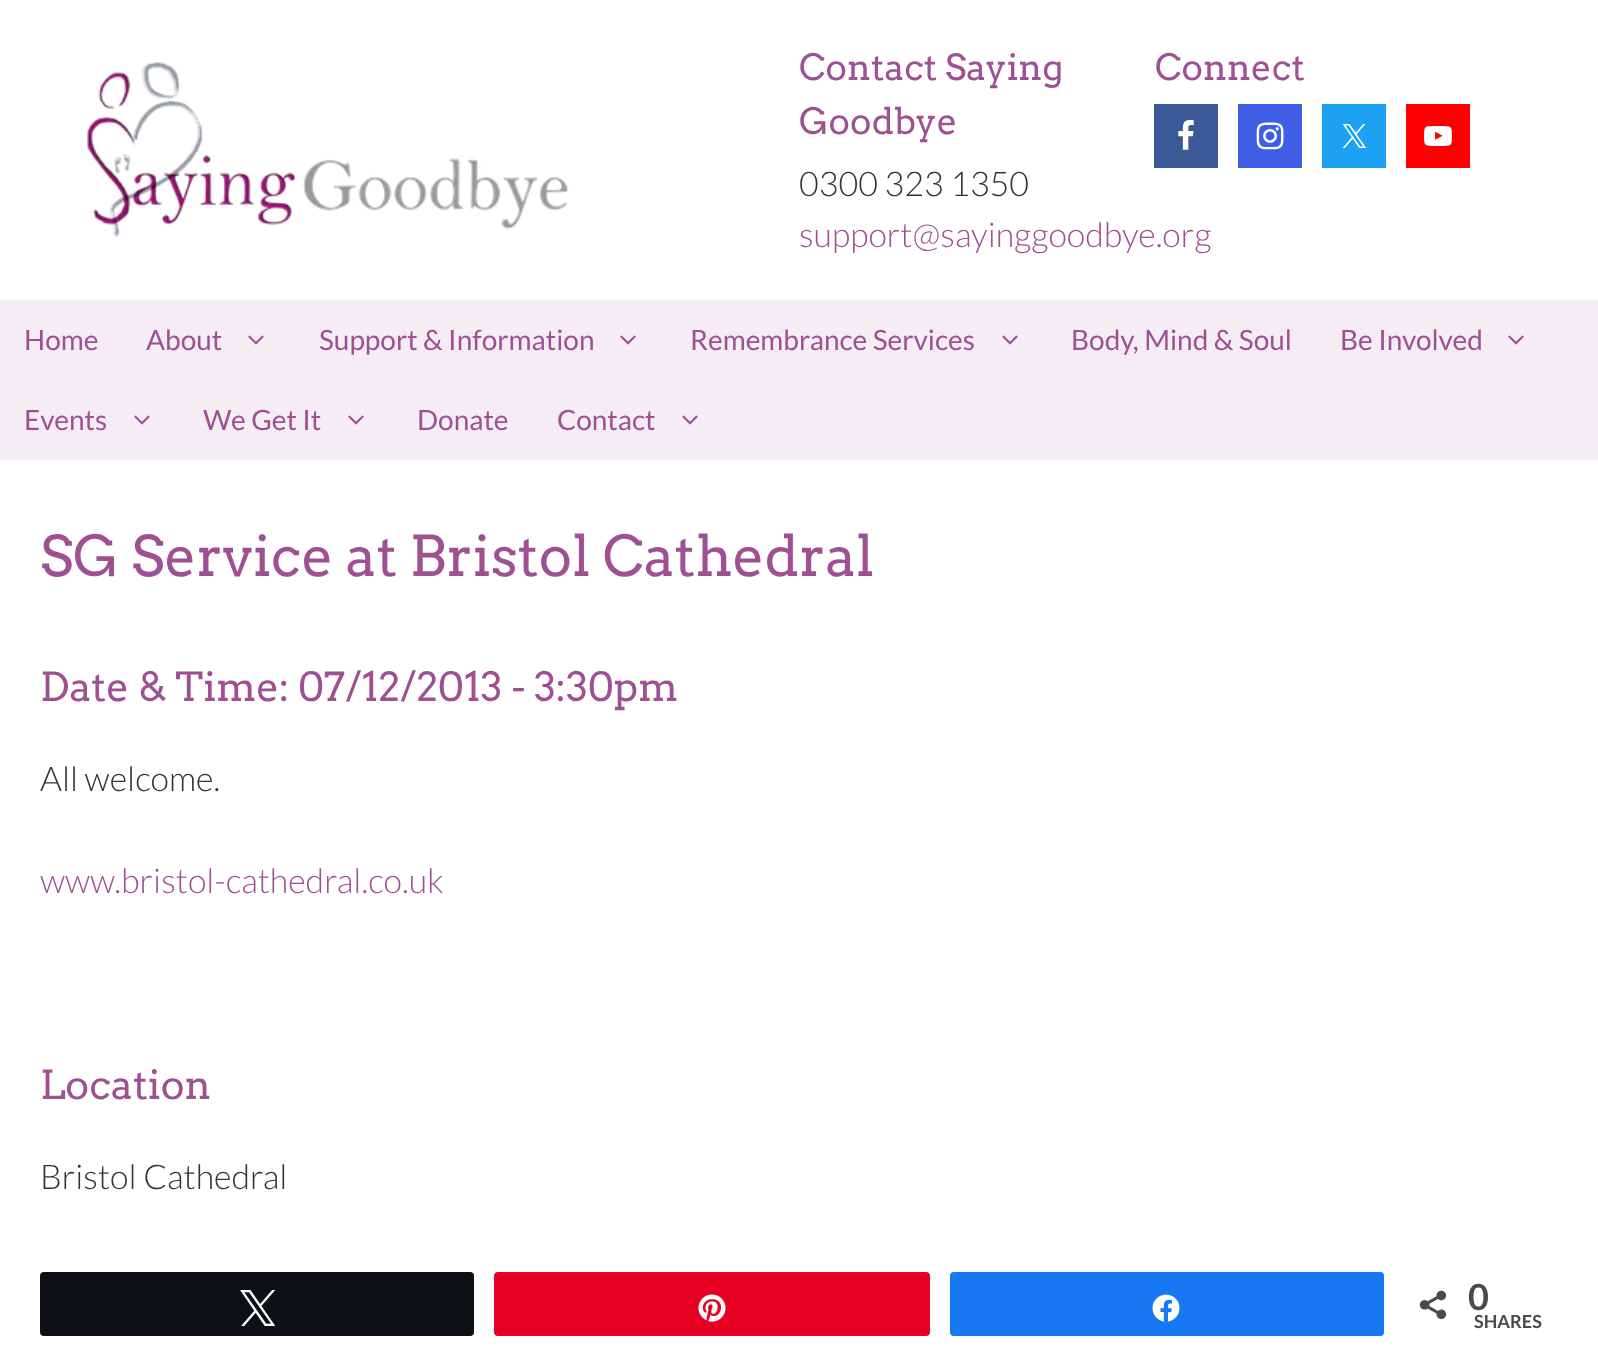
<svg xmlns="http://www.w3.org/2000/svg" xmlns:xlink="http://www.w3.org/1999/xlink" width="1598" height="1359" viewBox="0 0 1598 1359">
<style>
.cls-1{font:36px Arvo;fill:#9f5092}
.cls-2{font:300 34px Lato;fill:#333333}
.cls-3{font:300 34px Lato;fill:#9f5092}
.cls-4{font:28px Lato;fill:#9f5092}
.cls-5{font:56px Arvo;fill:#9f5092}
.cls-6{font:40px Arvo;fill:#9f5092}
.cls-7{font:bold 36px Lato;fill:#474b4d}
.cls-8{font:bold 18px Lato;fill:#474b4d}
</style>
<rect width="100%" height="100%" fill="#ffffff"/>
<image xlink:href="image0.png" x="87" y="62" width="482" height="176"/>
<rect fill="#3b5998" x="1154" y="104" width="64" height="64"/>
<image xlink:href="image1.png" x="1178" y="120" width="16" height="30"/>
<rect fill="#405de6" x="1238" y="104" width="64" height="64"/>
<image xlink:href="image2.png" x="1256" y="122" width="28" height="28"/>
<rect fill="#1da1f2" x="1322" y="104" width="64" height="64"/>
<image xlink:href="image3.png" x="1342" y="124" width="24" height="24"/>
<rect fill="#ff0000" x="1406" y="104" width="64" height="64"/>
<image xlink:href="image4.png" x="1424" y="126" width="28" height="20"/>
<rect fill="#f5edf4" x="0" y="300" width="1598" height="160"/>
<image xlink:href="image5.png" x="248" y="335" width="16" height="10"/>
<image xlink:href="image5.png" x="620" y="335" width="16" height="10"/>
<image xlink:href="image5.png" x="1002" y="335" width="16" height="10"/>
<image xlink:href="image5.png" x="1508" y="335" width="16" height="10"/>
<image xlink:href="image5.png" x="134" y="415" width="16" height="10"/>
<image xlink:href="image5.png" x="348" y="415" width="16" height="10"/>
<image xlink:href="image5.png" x="682" y="415" width="16" height="10"/>
<rect fill="#0d1014" stroke="#0d1014" stroke-width="2" x="41" y="1273" width="432" height="62" rx="3"/>
<image xlink:href="image6.png" x="240" y="1290" width="36" height="36"/>
<rect fill="#e60023" stroke="#e60023" stroke-width="2" x="495" y="1273" width="434" height="62" rx="3"/>
<image xlink:href="image7.png" x="698" y="1294" width="28" height="28"/>
<rect fill="#1877f2" stroke="#1877f2" stroke-width="2" x="951" y="1273" width="432" height="62" rx="3"/>
<image xlink:href="image8.png" x="1152" y="1294" width="28" height="28"/>
<image xlink:href="image9.png" x="1419" y="1290" width="28" height="30"/>
<text class="cls-1"><tspan x="799" y="80">Contact Saying</tspan><tspan x="799" y="134">Goodbye</tspan></text>
<text class="cls-2" x="799" y="196">0300 323 1350</text>
<text class="cls-3" x="799" y="247">support@sayinggoodbye.org</text>
<text class="cls-1" x="1155" y="80">Connect</text>
<text class="cls-4" x="24" y="350">Home</text>
<text class="cls-4" x="146" y="350">About</text>
<text class="cls-4" x="319" y="350">Support &amp; Information</text>
<text class="cls-4" x="690" y="350">Remembrance Services</text>
<text class="cls-4" x="1071" y="350">Body, Mind &amp; Soul</text>
<text class="cls-4" x="1340" y="350">Be Involved</text>
<text class="cls-4" x="24" y="430">Events</text>
<text class="cls-4" x="203" y="430">We Get It</text>
<text class="cls-4" x="417" y="430">Donate</text>
<text class="cls-4" x="557" y="430">Contact</text>
<text class="cls-5" x="40" y="576">SG Service at Bristol Cathedral</text>
<text class="cls-6" x="40" y="701">Date &amp; Time: 07/12/2013 - 3:30pm</text>
<text class="cls-2" x="40" y="791">All welcome.</text>
<text class="cls-3" x="40" y="893">www.bristol-cathedral.co.uk</text>
<text class="cls-6" x="40" y="1099">Location</text>
<text class="cls-2" x="40" y="1189">Bristol Cathedral</text>
<text class="cls-7" x="1468" y="1310">0</text>
<text class="cls-8" x="1474" y="1328">SHARES</text>
</svg>
